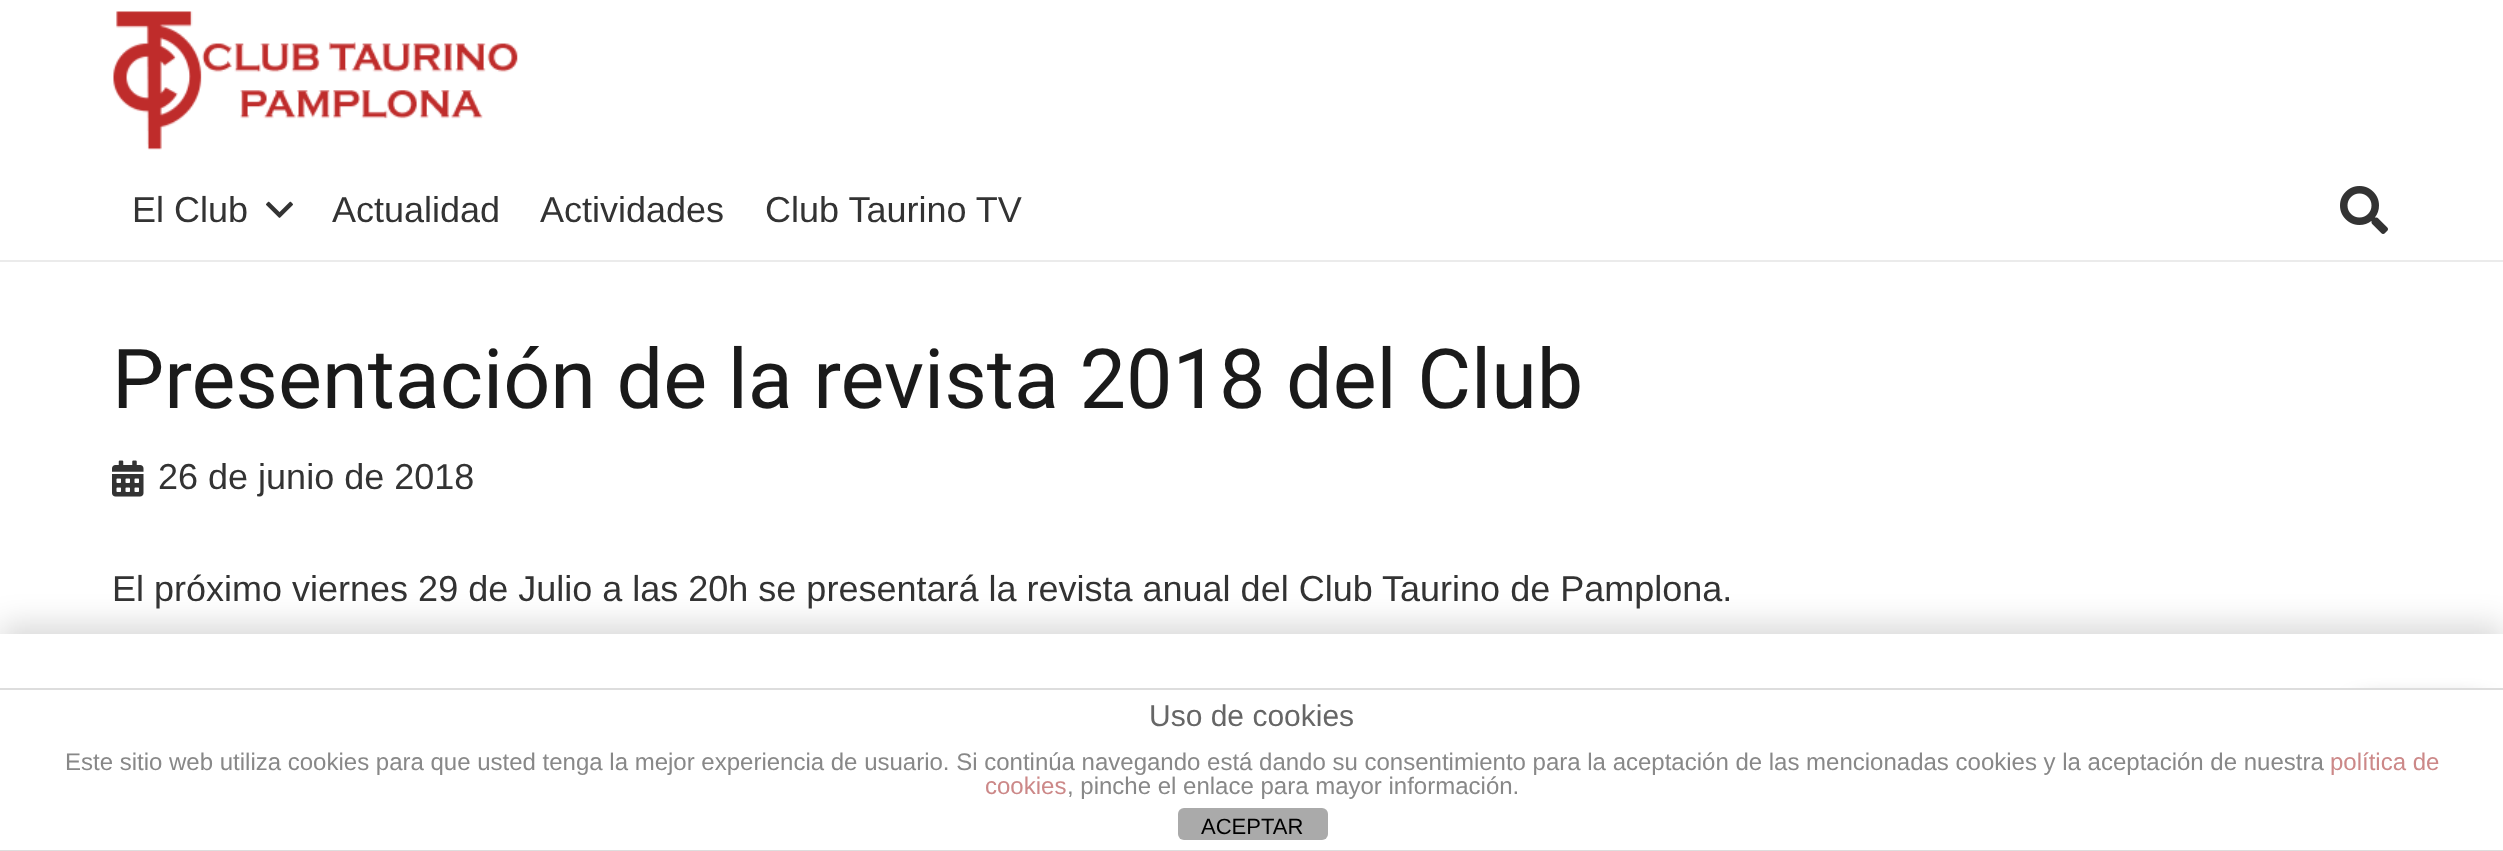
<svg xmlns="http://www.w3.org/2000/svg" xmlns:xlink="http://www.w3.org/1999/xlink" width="2503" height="851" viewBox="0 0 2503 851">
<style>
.cls-1{font:36px Liberation Sans;fill:#333333}
.cls-2{font:82.75px Roboto;fill:#1a1a1a}
.cls-3{font:30px Liberation Sans;fill:#666666}
.cls-4{font:24px Liberation Sans;fill:#888888}
.cls-5{font:24px Liberation Sans;fill:#cc8888}
.cls-6{font:22px Liberation Sans;fill:#000000}
</style>
<rect width="100%" height="100%" fill="#ffffff"/>
<image xlink:href="image0.png" x="113" y="11" width="405" height="139"/>
<rect fill="#ebebeb" x="0" y="260" width="2503" height="2"/>
<image xlink:href="image1.png" x="266" y="201" width="27" height="17"/>
<image xlink:href="image2.png" x="2340" y="186" width="48" height="48"/>
<image xlink:href="image3.png" x="112" y="460" width="32" height="37"/>
<rect fill="#000000" fill-opacity="0.15" filter="blur(15px)" x="0" y="624" width="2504" height="218"/>
<rect fill="#ffffff" x="0" y="634" width="2503" height="54"/>
<rect fill="#000000" fill-opacity="0.75" filter="blur(13px)" x="2358" y="708" width="126" height="72" rx="8"/>
<rect fill="#ffffff" x="0" y="690" width="2503" height="160"/>
<rect fill="#dddddd" x="0" y="688" width="2503" height="2"/>
<rect fill="#dddddd" x="0" y="850" width="2503" height="1"/>
<rect fill="#aaaaaa" x="1178" y="808" width="150" height="32" rx="6"/>
<text class="cls-1" x="132" y="222">El Club</text>
<text class="cls-1" x="332" y="222">Actualidad</text>
<text class="cls-1" x="540" y="222">Actividades</text>
<text class="cls-1" x="765" y="222">Club Taurino TV</text>
<text class="cls-2" x="112" y="408">Presentación de la revista 2018 del Club</text>
<text class="cls-1" x="158" y="489">26 de junio de 2018</text>
<text class="cls-1" x="112" y="601">El próximo viernes 29 de Julio a las 20h se presentará la revista anual del Club Taurino de Pamplona.</text>
<text class="cls-3" x="1149" y="726">Uso de cookies</text>
<text class="cls-4" x="65" y="770">Este sitio web utiliza cookies para que usted tenga la mejor experiencia de usuario. Si continúa navegando está dando su consentimiento para la aceptación de las mencionadas cookies y la aceptación de nuestra</text>
<text class="cls-5" x="2330" y="770">política de</text>
<text class="cls-5" x="985" y="794">cookies</text>
<text class="cls-4" x="1067" y="794">, pinche el enlace para mayor información.</text>
<text class="cls-6" x="1201" y="834">ACEPTAR</text>
</svg>
